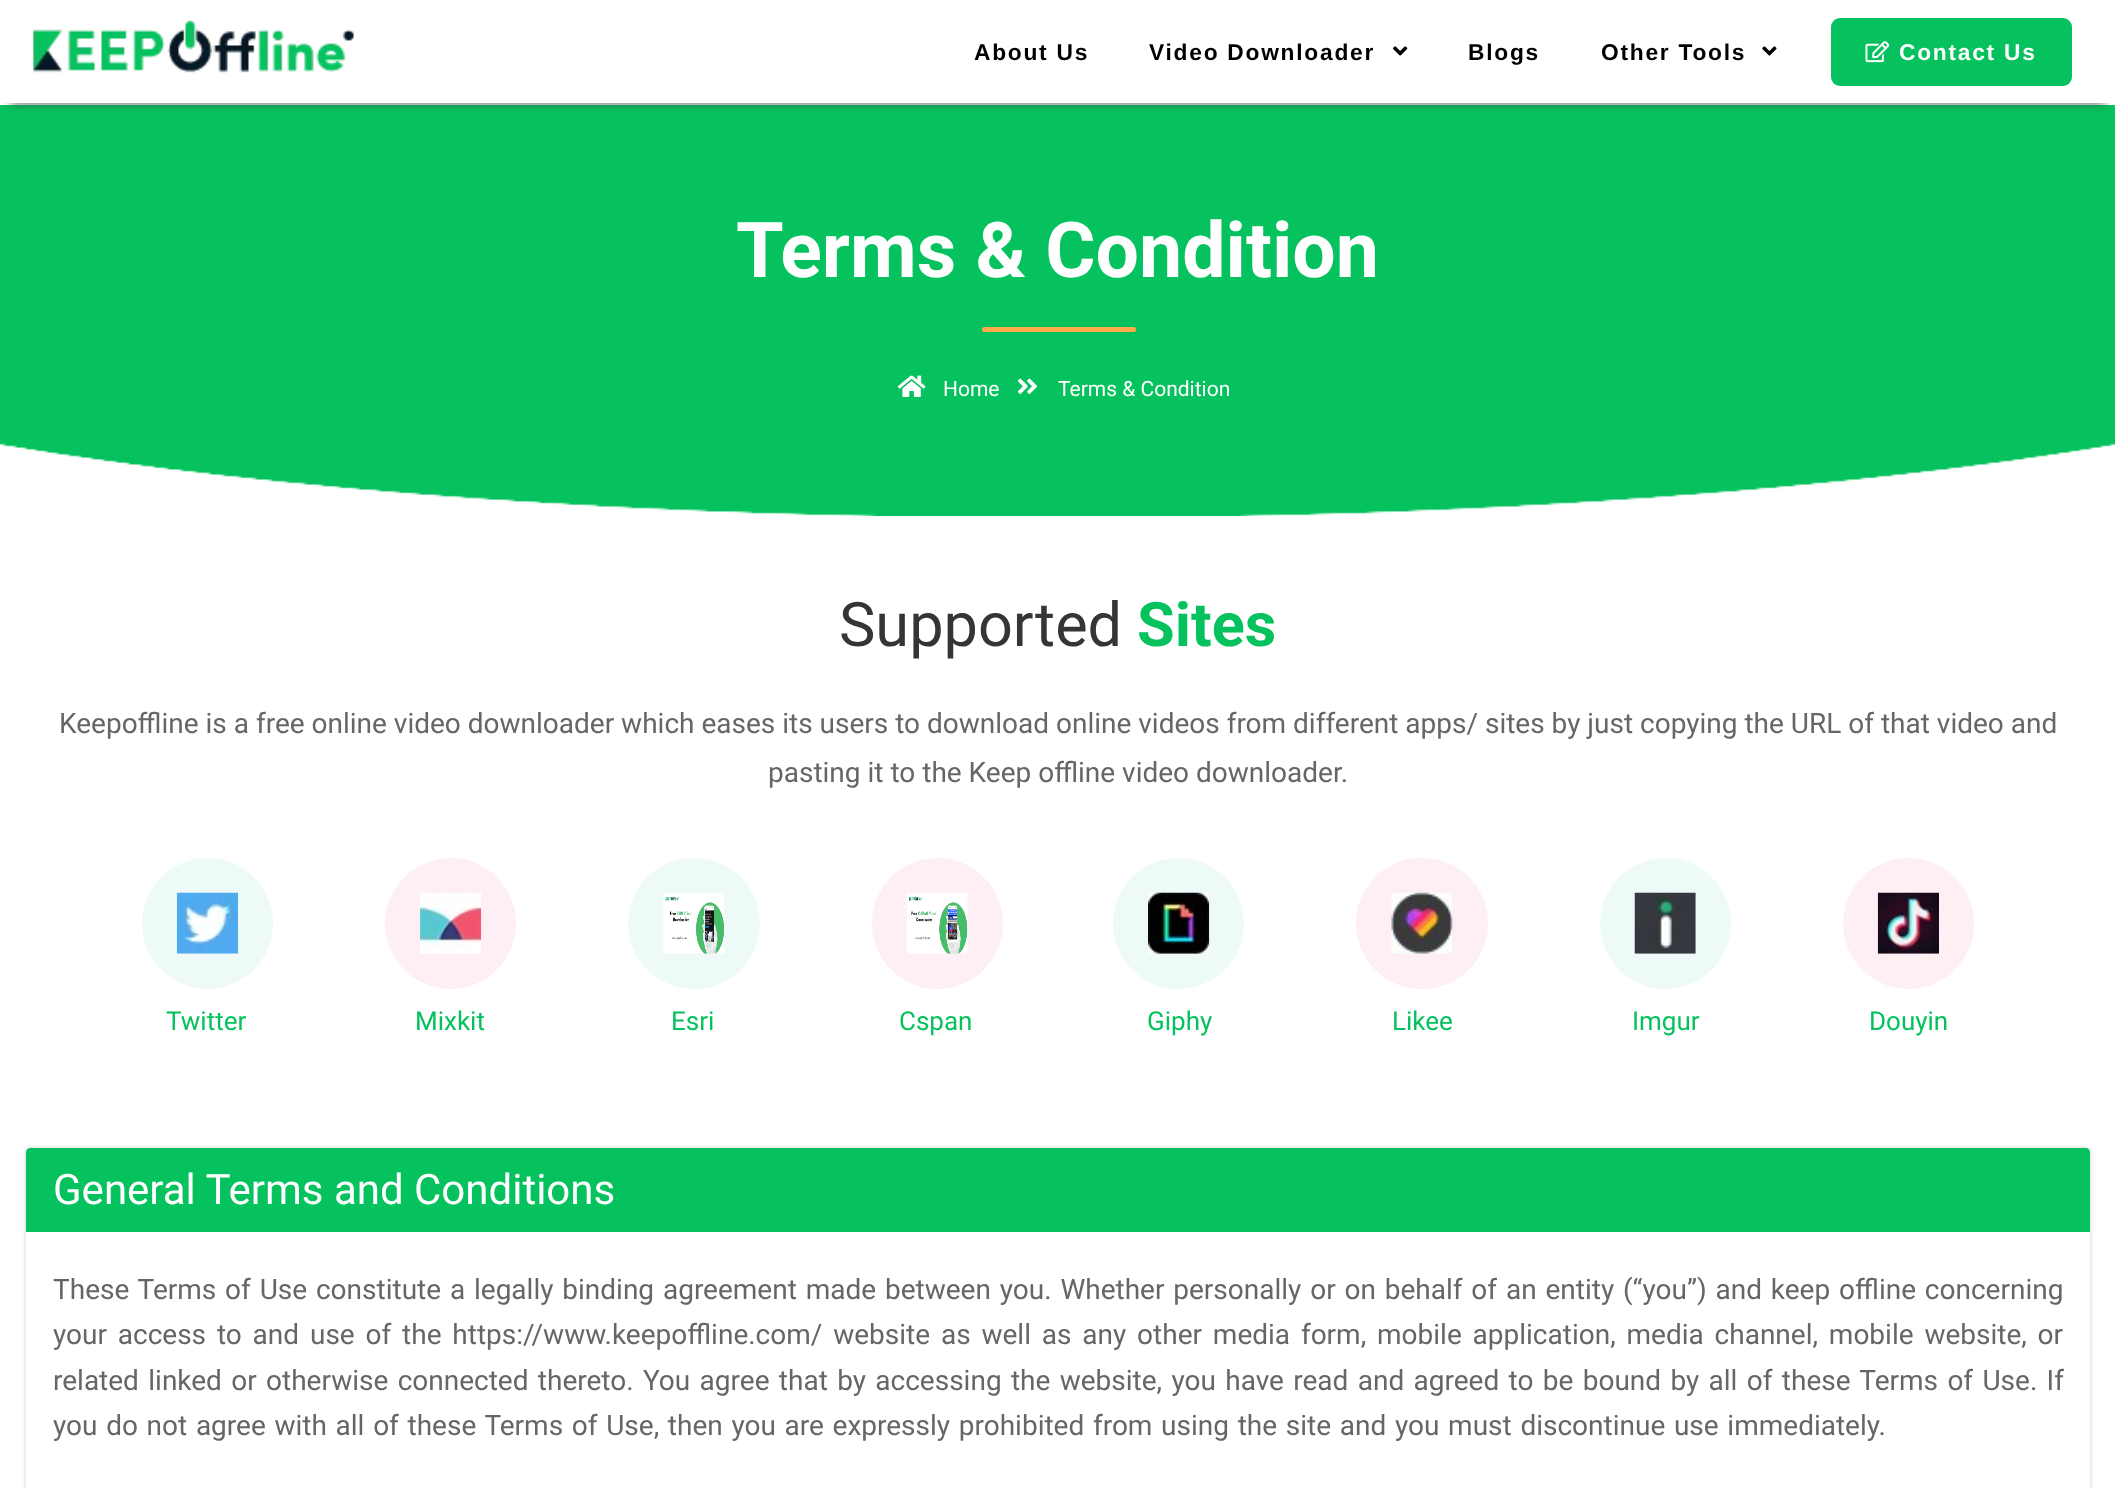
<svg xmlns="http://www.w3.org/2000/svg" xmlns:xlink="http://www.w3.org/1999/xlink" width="2115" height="1488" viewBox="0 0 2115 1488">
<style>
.cls-1{font:bold 22.75px Liberation Sans;letter-spacing:1.75px;fill:#000000}
.cls-2{font:bold 22.75px Liberation Sans;letter-spacing:1.75px;fill:#ffffff}
.cls-3{font:bold 77px Roboto;fill:#ffffff}
.cls-4{font:21px Roboto;fill:#ffffff}
.cls-5{font:61.25px Roboto;fill:#353535}
.cls-6{font:bold 61.25px Roboto;fill:#06c25e}
.cls-7{font:28px Roboto;fill:#666666}
.cls-8{font:26px Roboto;fill:#06c25e}
.cls-9{font:42px Roboto;fill:#ffffff}
</style>
<defs>
<clipPath id="clip1"><rect x="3" y="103" width="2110" height="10"/></clipPath>
</defs>
<rect width="100%" height="100%" fill="#ffffff"/>
<rect fill="#06c25e" x="0" y="105" width="2115" height="411"/>
<g clip-path="url(#clip1)">
<rect fill="#444444" filter="blur(5px)" x="11" y="21" width="2094" height="82"/>
</g>
<image xlink:href="image0.png" x="32" y="20" width="322" height="53"/>
<image xlink:href="image1.png" x="1393" y="46" width="15" height="10"/>
<image xlink:href="image2.png" x="1762" y="46" width="15" height="10"/>
<rect fill="#06c25e" x="1831" y="18" width="241" height="68" rx="9"/>
<image xlink:href="image3.png" x="1865" y="41" width="25" height="22"/>
<rect fill="#ffa949" x="982" y="327" width="154" height="5" rx="2.5"/>
<image xlink:href="image4.png" x="897" y="375" width="29" height="22"/>
<image xlink:href="image5.png" x="1018" y="378" width="19" height="16"/>
<image xlink:href="image6.png" x="0" y="443" width="2115" height="73"/>
<circle fill="#eefaf7" cx="207.5" cy="923.5" r="65.5"/>
<image xlink:href="image7.png" x="176" y="892" width="62" height="62"/>
<circle fill="#fdeff4" cx="450.5" cy="923.5" r="65.5"/>
<image xlink:href="image8.png" x="420" y="892" width="62" height="62"/>
<rect fill="#eefaf7" x="628" y="858" width="132" height="131" rx="65.5"/>
<image xlink:href="image9.png" x="663" y="892" width="62" height="62"/>
<circle fill="#fdeff4" cx="937.5" cy="923.5" r="65.5"/>
<image xlink:href="image10.png" x="906" y="892" width="62" height="62"/>
<circle fill="#eefaf7" cx="1178.5" cy="923.5" r="65.5"/>
<image xlink:href="image11.png" x="1148" y="892" width="62" height="62"/>
<rect fill="#fdeff4" x="1356" y="858" width="132" height="131" rx="65.5"/>
<image xlink:href="image12.png" x="1391" y="892" width="62" height="62"/>
<circle fill="#eefaf7" cx="1665.5" cy="923.5" r="65.5"/>
<image xlink:href="image13.png" x="1634" y="892" width="62" height="62"/>
<circle fill="#fdeff4" cx="1908.5" cy="923.5" r="65.5"/>
<image xlink:href="image14.png" x="1877" y="892" width="62" height="62"/>
<rect fill="#c9cccd" filter="blur(2px)" x="26" y="1148" width="2064" height="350" rx="4"/>
<rect fill="#ffffff" x="26" y="1148" width="2064" height="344" rx="4"/>
<path fill="#06c25e" d="M30 1148H2086C2088 1148 2090 1150 2090 1152V1232H26V1152C26 1150 28 1148 30 1148Z"/>
<text class="cls-1" x="974" y="60">About Us</text>
<text class="cls-1" x="1149" y="60">Video Downloader</text>
<text class="cls-1" x="1468" y="60">Blogs</text>
<text class="cls-1" x="1601" y="60">Other Tools</text>
<text class="cls-2" x="1899" y="60">Contact Us</text>
<text class="cls-3" x="736" y="277">Terms &amp; Condition</text>
<text class="cls-4" x="943" y="396">Home</text>
<text class="cls-4" x="1058" y="396">Terms &amp; Condition</text>
<text class="cls-5" x="839" y="646">Supported</text>
<text class="cls-6" x="1137" y="646">Sites</text>
<text class="cls-7" x="59" y="733">Keepoffline is a free online video downloader which eases its users to download online videos from different apps/ sites by just copying the URL of that video and</text>
<text class="cls-7" x="768" y="782">pasting it to the Keep offline video downloader.</text>
<text class="cls-8" x="166" y="1030">Twitter</text>
<text class="cls-8" x="415" y="1030">Mixkit</text>
<text class="cls-8" x="671" y="1030">Esri</text>
<text class="cls-8" x="899" y="1030">Cspan</text>
<text class="cls-8" x="1147" y="1030">Giphy</text>
<text class="cls-8" x="1392" y="1030">Likee</text>
<text class="cls-8" x="1632" y="1030">Imgur</text>
<text class="cls-8" x="1869" y="1030">Douyin</text>
<text class="cls-9" x="53" y="1204">General Terms and Conditions</text>
<text class="cls-7"><tspan x="53" y="1299" word-spacing="1.9">These Terms of Use constitute a legally binding agreement made between you. Whether personally or on behalf of an entity (“you”) and keep offline concerning</tspan><tspan x="53" y="1344" word-spacing="3.9">your access to and use of the https://www.keepoffline.com/ website as well as any other media form, mobile application, media channel, mobile website, or</tspan><tspan x="53" y="1390" word-spacing="2.4">related linked or otherwise connected thereto. You agree that by accessing the website, you have read and agreed to be bound by all of these Terms of Use. If</tspan><tspan x="53" y="1435" word-spacing="1.75">you do not agree with all of these Terms of Use, then you are expressly prohibited from using the site and you must discontinue use immediately.</tspan></text>
</svg>
